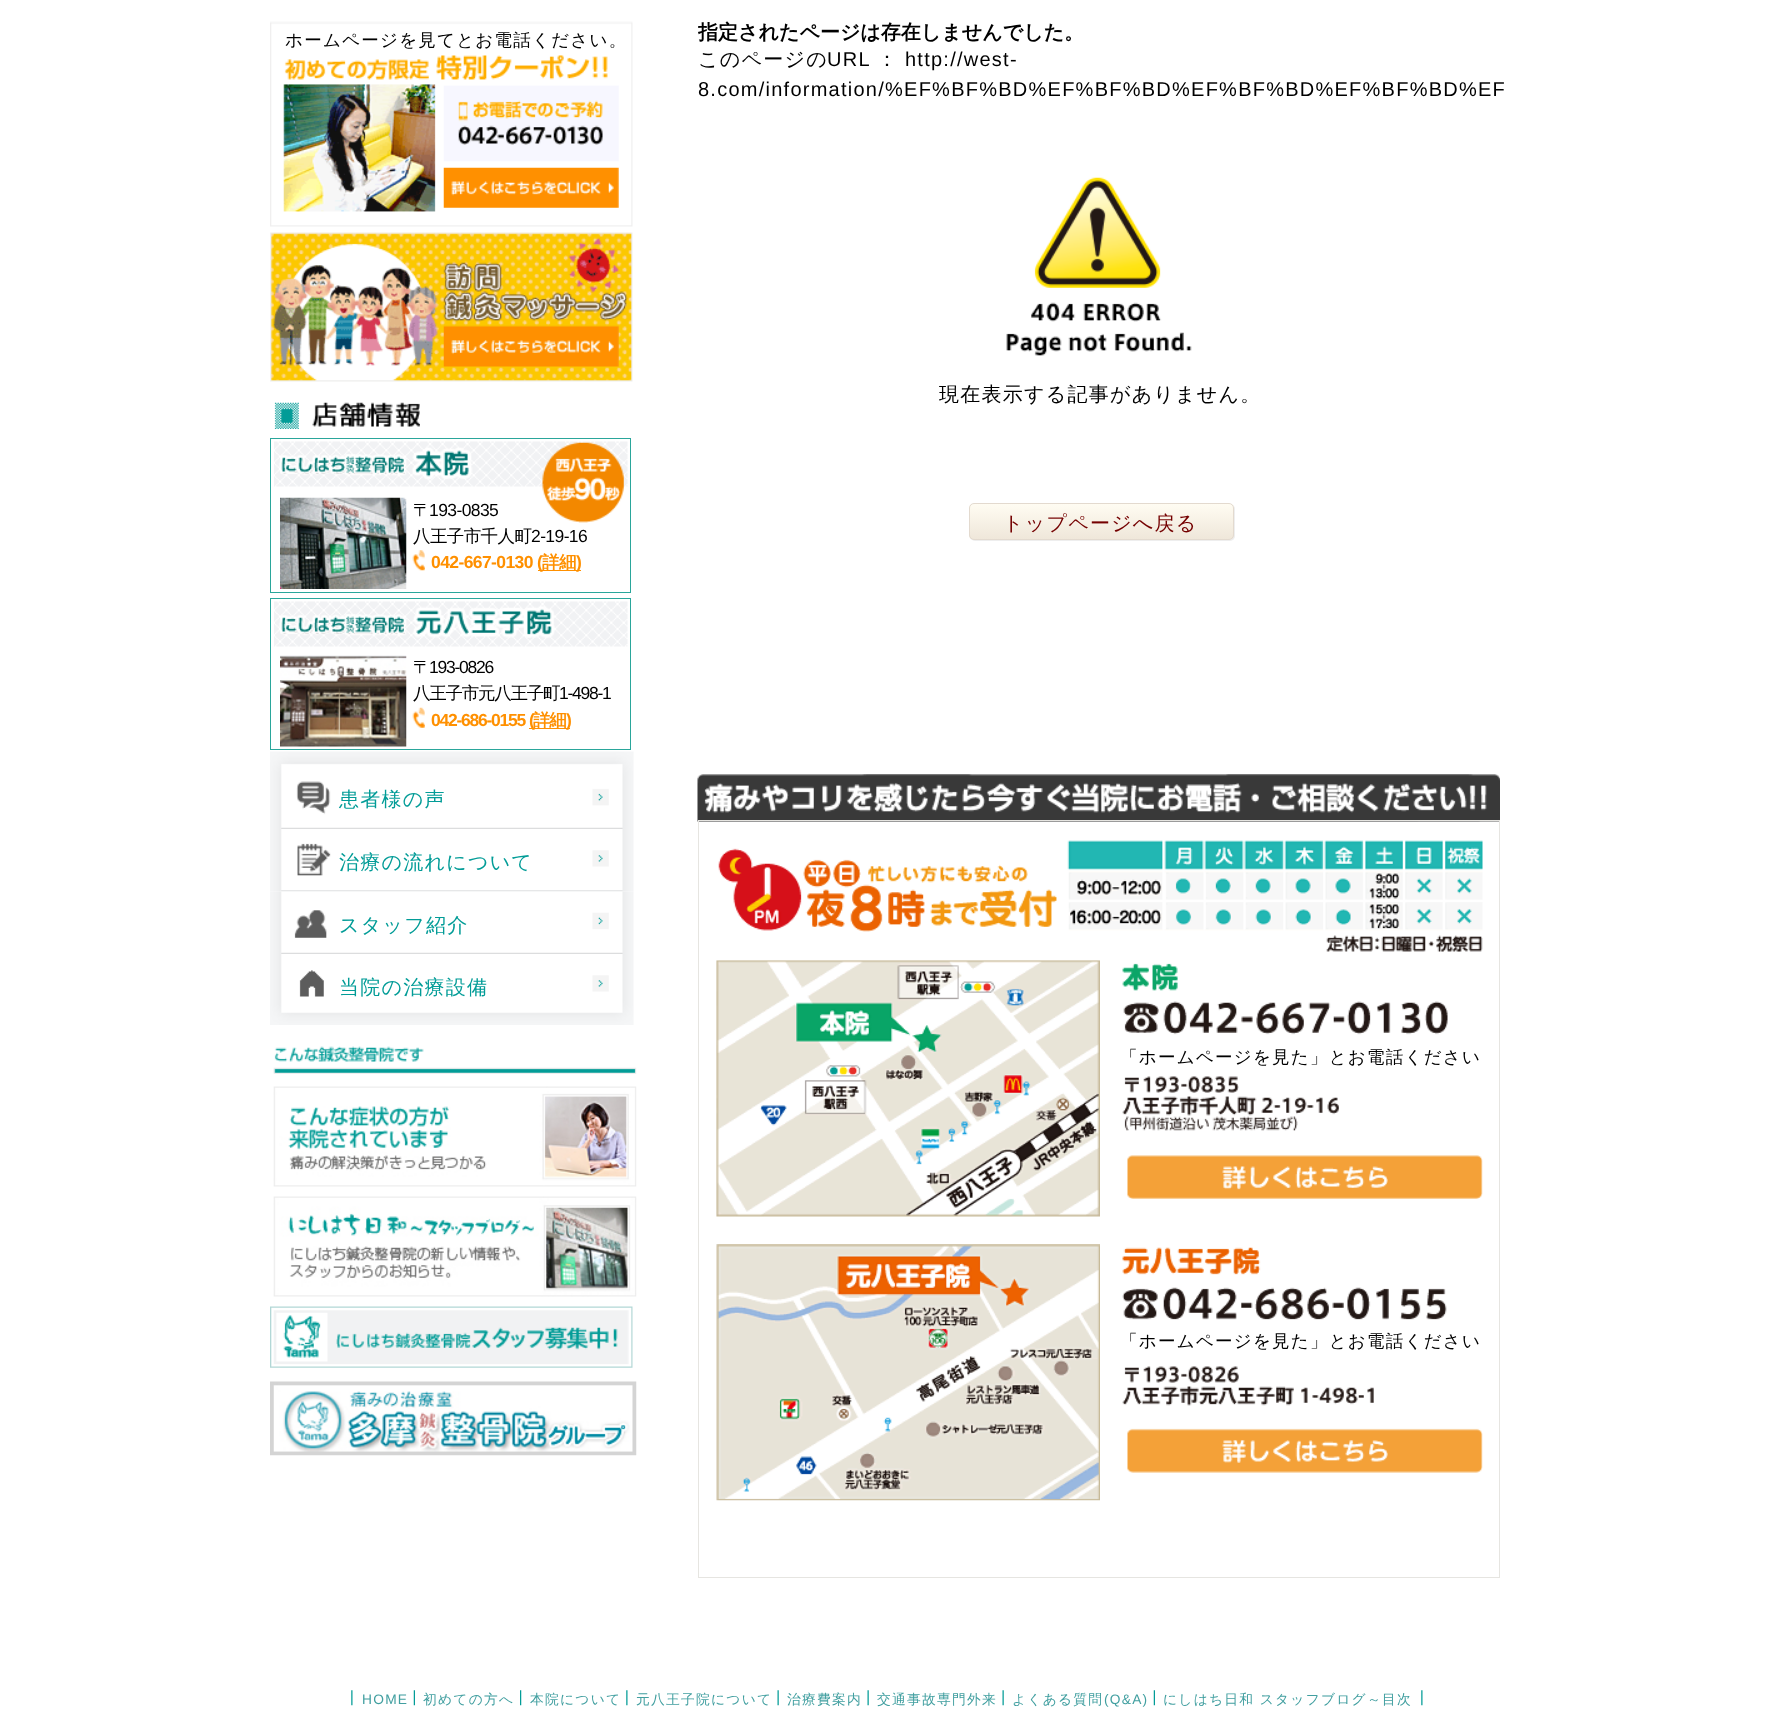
<svg xmlns="http://www.w3.org/2000/svg" xmlns:xlink="http://www.w3.org/1999/xlink" width="1773" height="1730" viewBox="0 0 1773 1730">
<style>
.cls-1{font:500 17.5px WenQuanYi Zen Hei;letter-spacing:1.25px;fill:#000000}
.cls-2{font:500 17.5px WenQuanYi Zen Hei;letter-spacing:-0.6px;fill:#000000}
.cls-3{font:17.5px Liberation Sans;letter-spacing:-0.6px;fill:#000000}
.cls-4{font:bold 17.5px Liberation Sans;letter-spacing:-0.6px;fill:#ff9000}
.cls-5{font:bold 17.5px WenQuanYi Zen Hei;letter-spacing:-0.6px;fill:#ff9000}
.cls-6{font:500 17.5px WenQuanYi Zen Hei;letter-spacing:-1.25px;fill:#000000}
.cls-7{font:17.5px Liberation Sans;letter-spacing:-1.25px;fill:#000000}
.cls-8{font:bold 17.5px Liberation Sans;letter-spacing:-1.25px;fill:#ff9000}
.cls-9{font:bold 17.5px WenQuanYi Zen Hei;letter-spacing:-1.25px;fill:#ff9000}
.cls-10{font:500 20px WenQuanYi Zen Hei;letter-spacing:1.25px;fill:#029c97}
.cls-11{font:bold 20px WenQuanYi Zen Hei;fill:#000000}
.cls-12{font:500 20px WenQuanYi Zen Hei;letter-spacing:1.25px;fill:#000000}
.cls-13{font:20px Liberation Sans;letter-spacing:1.25px;fill:#000000}
.cls-14{font:500 20px WenQuanYi Zen Hei;letter-spacing:1.25px;fill:#740000}
.cls-15{font:13.75px Liberation Sans;letter-spacing:1.25px;fill:#419fa0}
.cls-16{font:500 13.75px WenQuanYi Zen Hei;letter-spacing:1.25px;fill:#419fa0}
</style>
<defs>
<clipPath id="clip1"><rect x="969" y="503" width="265" height="37" rx="5"/></clipPath>
<linearGradient id="g1" gradientUnits="userSpaceOnUse" x1="1101" y1="504" x2="1101" y2="539"><stop offset="0" stop-color="#fffcf2"/><stop offset="1" stop-color="#efe7da"/></linearGradient>
<clipPath id="clip2"><rect x="698" y="21" width="806" height="24"/></clipPath>
</defs>
<rect width="100%" height="100%" fill="#ffffff"/>
<image xlink:href="image0.png" x="270" y="21" width="363" height="206"/>
<image xlink:href="image1.png" x="443" y="167" width="176" height="41"/>
<image xlink:href="image2.png" x="270" y="232" width="363" height="150"/>
<image xlink:href="image3.png" x="274" y="402" width="146" height="27"/>
<image xlink:href="image4.png" x="274" y="441" width="354" height="82"/>
<rect fill="none" stroke="#2aa69b" x="270.5" y="438.5" width="360" height="154"/>
<image xlink:href="image5.png" x="280" y="497" width="127" height="92"/>
<image xlink:href="image6.png" x="412" y="550" width="13" height="21"/>
<rect fill="#ff9000" x="538" y="570" width="43" height="1"/>
<rect fill="none" stroke="#2aa69b" x="270.5" y="598.5" width="360" height="151"/>
<image xlink:href="image7.png" x="274" y="601" width="354" height="46"/>
<image xlink:href="image8.png" x="280" y="655" width="127" height="92"/>
<image xlink:href="image9.png" x="412" y="707" width="13" height="21"/>
<rect fill="#ff9000" x="529" y="728" width="41" height="1"/>
<image xlink:href="image10.png" x="270" y="751" width="364" height="78"/>
<image xlink:href="image11.png" x="270" y="829" width="364" height="63"/>
<image xlink:href="image12.png" x="270" y="891" width="364" height="63"/>
<image xlink:href="image13.png" x="270" y="954" width="364" height="71"/>
<image xlink:href="image14.png" x="273" y="1046" width="364" height="28"/>
<image xlink:href="image15.png" x="273" y="1086" width="364" height="101"/>
<image xlink:href="image16.png" x="273" y="1196" width="364" height="101"/>
<image xlink:href="image17.png" x="270" y="1306" width="363" height="62"/>
<image xlink:href="image18.png" x="270" y="1381" width="367" height="75"/>
<image xlink:href="image19.png" x="1006" y="177" width="186" height="179"/>
<rect fill="#eeeeee" filter="blur(0.5px)" x="970" y="504" width="265" height="37" rx="5"/>
<g clip-path="url(#clip1)">
<rect fill="url(#g1)" x="969" y="504" width="265" height="35"/>
</g>
<rect fill="none" stroke="#e3dacf" x="969.5" y="503.5" width="264" height="36" rx="4.5"/>
<image xlink:href="image20.png" x="697" y="774" width="803" height="48"/>
<rect fill="none" stroke="#e6e5e1" x="698.5" y="820.5" width="801" height="757"/>
<image xlink:href="image21.png" x="718" y="840" width="765" height="112"/>
<image xlink:href="image22.png" x="716" y="960" width="384" height="257"/>
<image xlink:href="image23.png" x="1122" y="963" width="326" height="72"/>
<image xlink:href="image24.png" x="1122" y="1076" width="217" height="55"/>
<image xlink:href="image25.png" x="1127" y="1155" width="356" height="44"/>
<image xlink:href="image26.png" x="716" y="1244" width="384" height="257"/>
<image xlink:href="image27.png" x="1122" y="1247" width="325" height="73"/>
<image xlink:href="image28.png" x="1122" y="1366" width="252" height="40"/>
<image xlink:href="image29.png" x="1127" y="1428" width="356" height="45"/>
<image xlink:href="image30.png" x="351" y="1690" width="2" height="16"/>
<image xlink:href="image31.png" x="413" y="1690" width="2" height="16"/>
<image xlink:href="image32.png" x="520" y="1690" width="2" height="16"/>
<image xlink:href="image30.png" x="626" y="1690" width="2" height="16"/>
<image xlink:href="image33.png" x="777" y="1690" width="2" height="16"/>
<image xlink:href="image33.png" x="867" y="1690" width="2" height="16"/>
<image xlink:href="image33.png" x="1002" y="1690" width="2" height="16"/>
<image xlink:href="image31.png" x="1153" y="1690" width="2" height="16"/>
<image xlink:href="image30.png" x="1421" y="1690" width="2" height="16"/>
<text class="cls-1" x="285" y="46">ホームページを見てとお電話ください。</text>
<text class="cls-2" x="413" y="516">〒</text>
<text class="cls-3" x="429" y="516">193-0835</text>
<text class="cls-2" x="413" y="542">八王子市千人町</text>
<text class="cls-3" x="531" y="542">2-19-16</text>
<text class="cls-4" x="431" y="568">042-667-0130</text>
<text class="cls-4" x="537" y="568">(</text>
<text class="cls-5" x="542" y="568">詳細</text>
<text class="cls-4" x="576" y="568">)</text>
<text class="cls-6" x="413" y="673">〒</text>
<text class="cls-7" x="429" y="673">193-0826</text>
<text class="cls-6" x="413" y="699">八王子市元八王子町</text>
<text class="cls-7" x="559" y="699">1-498-1</text>
<text class="cls-8" x="431" y="726">042-686-0155</text>
<text class="cls-8" x="529" y="726">(</text>
<text class="cls-9" x="533" y="726">詳細</text>
<text class="cls-8" x="566" y="726">)</text>
<text class="cls-10" x="339" y="806">患者様の声</text>
<text class="cls-10" x="339" y="869">治療の流れについて</text>
<text class="cls-10" x="339" y="932">スタッフ紹介</text>
<text class="cls-10" x="339" y="994">当院の治療設備</text>
<g clip-path="url(#clip2)">
<text class="cls-11" x="698" y="39">指定されたページは存在しませんでした。</text>
</g>
<text class="cls-12" x="698" y="66">このページの</text>
<text class="cls-13" x="827" y="66">URL</text>
<text class="cls-12" x="877" y="66">：</text>
<text class="cls-13" x="905" y="66">http://west-</text>
<text class="cls-13" x="698" y="96">8.com/information/%EF%BF%BD%EF%BF%BD%EF%BF%BD%EF%BF%BD%EF</text>
<text class="cls-12" x="939" y="401">現在表示する記事がありません。</text>
<text class="cls-14" x="1003" y="530">トップページへ戻る</text>
<text class="cls-1" x="1120" y="1063">「ホームページを見た」とお電話ください</text>
<text class="cls-1" x="1120" y="1347">「ホームページを見た」とお電話ください</text>
<text class="cls-15" x="362" y="1704">HOME</text>
<text class="cls-16" x="423" y="1704">初めての方へ</text>
<text class="cls-16" x="530" y="1704">本院について</text>
<text class="cls-16" x="636" y="1704">元八王子院について</text>
<text class="cls-16" x="787" y="1704">治療費案内</text>
<text class="cls-16" x="877" y="1704">交通事故専門外来</text>
<text class="cls-16" x="1012" y="1704">よくある質問</text>
<text class="cls-15" x="1104" y="1704">(Q&amp;A)</text>
<text class="cls-16" x="1163" y="1704">にしはち日和 スタッフブログ～目次</text>
</svg>
